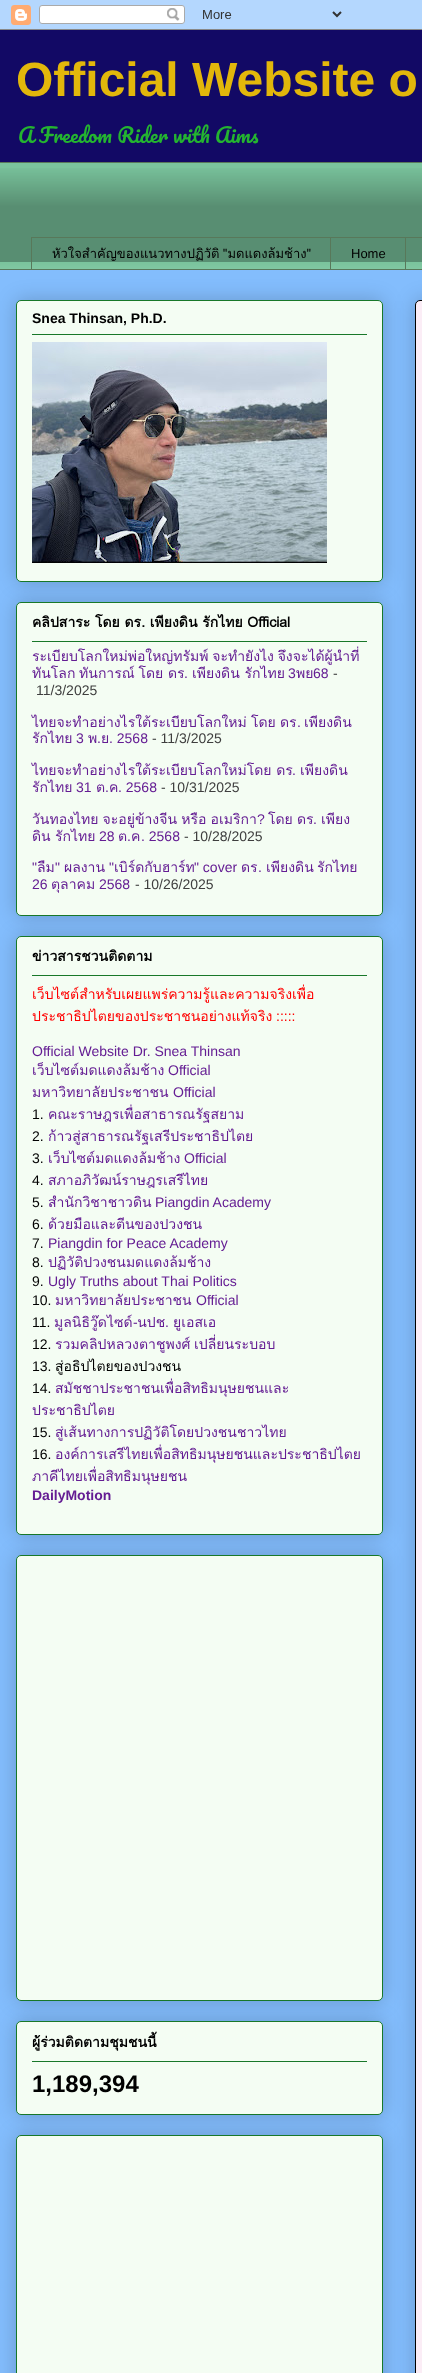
<svg xmlns="http://www.w3.org/2000/svg" xmlns:xlink="http://www.w3.org/1999/xlink" width="422" height="2373" viewBox="0 0 422 2373">
<style>
.cls-1{font:bold 48px Liberation Sans;fill:#e2b70b}
.cls-2{font:20px Pacifico;fill:#24b430}
.cls-3{font:13px Loma;fill:#000000}
.cls-4{font:13px Liberation Sans;fill:#000000}
.cls-5{font:bold 14px Liberation Sans;fill:#000000}
.cls-6{font:bold 14px Loma;fill:#000000}
.cls-7{font:14px Loma;fill:#641d93}
.cls-8{font:14px Liberation Sans;fill:#641d93}
.cls-9{font:14px Liberation Sans;fill:#3e3e3e}
.cls-10{font:14px Loma;fill:#ff0000}
.cls-11{font:14px Liberation Sans;fill:#ff0000}
.cls-12{font:14px Liberation Sans;fill:#000000}
.cls-13{font:14px Loma;fill:#000000}
.cls-14{font:bold 14px Liberation Sans;fill:#641d93}
.cls-15{font:bold 24px Liberation Sans;fill:#000000}
</style>
<rect width="100%" height="100%" fill="#83bdfd"/>
<image xlink:href="image0.png" x="0" y="0" width="422" height="30"/>
<rect fill="#120965" x="0" y="30" width="422" height="132"/>
<rect fill="#7ac49d" x="0" y="163" width="422" height="106"/>
<image xlink:href="image1.png" x="0" y="168" width="422" height="101"/>
<rect fill="#58785a" x="0" y="162" width="422" height="1"/>
<rect fill="#58785a" x="31" y="237" width="391" height="1"/>
<rect fill="#58785a" x="31" y="237" width="1" height="33"/>
<rect fill="#58785a" x="330" y="237" width="1" height="33"/>
<rect fill="#58785a" x="405" y="237" width="1" height="33"/>
<rect fill="#58785a" x="0" y="269" width="422" height="1"/>
<rect fill="#000000" fill-opacity="0.2" filter="blur(10px)" x="16" y="300" width="367" height="282" rx="5"/>
<rect fill="#f4fdf3" stroke="#187829" x="16.5" y="300.5" width="366" height="281" rx="4.5"/>
<rect fill="#187829" x="32" y="334" width="335" height="1"/>
<image xlink:href="image2.png" x="32" y="342" width="295" height="221"/>
<rect fill="#000000" fill-opacity="0.2" filter="blur(10px)" x="16" y="602" width="367" height="314" rx="5"/>
<rect fill="#f4fdf3" stroke="#187829" x="16.5" y="602.5" width="366" height="313" rx="4.5"/>
<rect fill="#187829" x="32" y="641" width="335" height="1"/>
<rect fill="#000000" fill-opacity="0.2" filter="blur(10px)" x="16" y="936" width="367" height="599" rx="5"/>
<rect fill="#f4fdf3" stroke="#187829" x="16.5" y="936.5" width="366" height="598" rx="4.5"/>
<rect fill="#187829" x="32" y="975" width="335" height="1"/>
<rect fill="#000000" fill-opacity="0.2" filter="blur(10px)" x="16" y="1555" width="367" height="446" rx="5"/>
<rect fill="#f4fdf3" stroke="#187829" x="16.5" y="1555.5" width="366" height="445" rx="4.5"/>
<rect fill="#000000" fill-opacity="0.2" filter="blur(10px)" x="16" y="2021" width="367" height="94" rx="5"/>
<rect fill="#f4fdf3" stroke="#187829" x="16.5" y="2021.5" width="366" height="93" rx="4.5"/>
<rect fill="#187829" x="32" y="2061" width="335" height="1"/>
<rect fill="#000000" fill-opacity="0.2" filter="blur(10px)" x="16" y="2135" width="367" height="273" rx="5"/>
<rect fill="#f4fdf3" stroke="#187829" x="16.5" y="2135.5" width="366" height="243" rx="4.5"/>
<rect fill="#000000" fill-opacity="0.2" filter="blur(10px)" x="415" y="300" width="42" height="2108" rx="5"/>
<rect fill="#fbedf6" stroke="#000000" x="415.5" y="300.5" width="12" height="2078" rx="4.5"/>
<text class="cls-1" x="16" y="96">Official Website o</text>
<text class="cls-2" x="18" y="143">A Freedom Rider with Aims</text>
<text class="cls-3" x="52" y="258" word-spacing="-1">หัวใจสำคัญของแนวทางปฏิวัติ "มดแดงล้มช้าง"</text>
<text class="cls-4" x="351" y="258">Home</text>
<text class="cls-5" x="32" y="323">Snea Thinsan, Ph.D.</text>
<text class="cls-6" x="32" y="627">คลิปสาระ โดย ดร. เพียงดิน รักไทย Official</text>
<text class="cls-7"><tspan x="32" y="661" word-spacing="-1">ระเบียบโลกใหม่พ่อใหญ่ทรัมพ์ จะทำยังไง จึงจะได้ผู้นำที่</tspan><tspan x="32" y="678" word-spacing="-1">ทันโลก ทันการณ์ โดย</tspan></text>
<text class="cls-7" x="168" y="678">ดร</text>
<text class="cls-7" x="192" y="678">เพียงดิน รักไทย</text>
<text class="cls-8" x="288" y="678">3</text>
<text class="cls-7" x="296" y="678">พย</text>
<text class="cls-8" x="313" y="678">68</text>
<text class="cls-9" x="333" y="678">-</text>
<text class="cls-8" x="184" y="678">.</text>
<text class="cls-9" x="36" y="695">11/3/2025</text>
<text class="cls-7" x="32" y="727" word-spacing="-0.5">ไทยจะทำอย่างไรใต้ระเบียบโลกใหม่ โดย ดร</text>
<text class="cls-8" x="297" y="727">.</text>
<text class="cls-7" x="304" y="727">เพียงดิน</text>
<text class="cls-7" x="32" y="743">รักไทย</text>
<text class="cls-8" x="76" y="743">3</text>
<text class="cls-7" x="88" y="743">พ</text>
<text class="cls-8" x="97" y="743">.</text>
<text class="cls-7" x="101" y="743">ย</text>
<text class="cls-8" x="109" y="743">. 2568</text>
<text class="cls-9" x="152" y="743">- 11/3/2025</text>
<text class="cls-7" x="32" y="775">ไทยจะทำอย่างไรใต้ระเบียบโลกใหม่โดย ดร</text>
<text class="cls-8" x="292" y="775">.</text>
<text class="cls-7" x="300" y="775">เพียงดิน</text>
<text class="cls-7" x="32" y="792">รักไทย</text>
<text class="cls-8" x="76" y="792">31</text>
<text class="cls-7" x="96" y="792">ต</text>
<text class="cls-8" x="105" y="792">.</text>
<text class="cls-7" x="109" y="792">ค</text>
<text class="cls-8" x="118" y="792">. 2568</text>
<text class="cls-9" x="161" y="792">- 10/31/2025</text>
<text class="cls-7" x="32" y="824" word-spacing="-0.5">วันทองไทย จะอยู่ข้างจีน หรือ อเมริกา</text>
<text class="cls-8" x="257" y="824">?</text>
<text class="cls-7" x="268" y="824" word-spacing="-0.5">โดย ดร</text>
<text class="cls-8" x="313" y="824">.</text>
<text class="cls-7" x="321" y="824">เพียง</text>
<text class="cls-7" x="32" y="841">ดิน</text>
<text class="cls-7" x="55" y="841">รักไทย</text>
<text class="cls-8" x="99" y="841">28</text>
<text class="cls-7" x="118" y="841">ต</text>
<text class="cls-8" x="127" y="841">.</text>
<text class="cls-7" x="131" y="841">ค</text>
<text class="cls-8" x="141" y="841">. 2568</text>
<text class="cls-9" x="184" y="841">- 10/28/2025</text>
<text class="cls-7" x="266" y="872">เพียงดิน</text>
<text class="cls-7" x="317" y="872">รักไทย</text>
<text class="cls-8" x="32" y="872">"</text>
<text class="cls-7" x="37" y="872">ลืม</text>
<text class="cls-8" x="55" y="872">"</text>
<text class="cls-7" x="64" y="872">ผลงาน</text>
<text class="cls-8" x="109" y="872">"</text>
<text class="cls-7" x="114" y="872">เบิร์ดกับฮาร์ท</text>
<text class="cls-8" x="194" y="872">" cover</text>
<text class="cls-7" x="241" y="872">ดร</text>
<text class="cls-8" x="258" y="872">.</text>
<text class="cls-8" x="32" y="889">26</text>
<text class="cls-7" x="51" y="889">ตุลาคม</text>
<text class="cls-8" x="99" y="889">2568</text>
<text class="cls-9" x="135" y="889">- 10/26/2025</text>
<text class="cls-6" x="32" y="961">ข่าวสารชวนติดตาม</text>
<text class="cls-10"><tspan x="32" y="999">เว็บไซต์สำหรับเผยแพร่ความรู้และความจริงเพื่อ</tspan><tspan x="32" y="1021">ประชาธิปไตยของประชาชนอย่างแท้จริง</tspan></text>
<text class="cls-11" x="276" y="1021">:::::</text>
<text class="cls-8" x="32" y="1056">Official Website Dr. Snea Thinsan</text>
<text class="cls-7" x="32" y="1075">เว็บไซต์มดแดงล้มช้าง</text>
<text class="cls-8" x="168" y="1075">Official</text>
<text class="cls-7" x="32" y="1097">มหาวิทยาลัยประชาชน</text>
<text class="cls-8" x="173" y="1097">Official</text>
<text class="cls-12" x="32" y="1119">1.</text>
<text class="cls-7" x="48" y="1119">คณะราษฎรเพื่อสาธารณรัฐสยาม</text>
<text class="cls-12" x="32" y="1141">2.</text>
<text class="cls-7" x="48" y="1141">ก้าวสู่สาธารณรัฐเสรีประชาธิปไตย</text>
<text class="cls-12" x="32" y="1163">3.</text>
<text class="cls-7" x="48" y="1163">เว็บไซต์มดแดงล้มช้าง</text>
<text class="cls-8" x="184" y="1163">Official</text>
<text class="cls-12" x="32" y="1185">4.</text>
<text class="cls-7" x="48" y="1185">สภาอภิวัฒน์ราษฎรเสรีไทย</text>
<text class="cls-12" x="32" y="1207">5.</text>
<text class="cls-7" x="48" y="1207">สำนักวิชาชาวดิน</text>
<text class="cls-8" x="155" y="1207">Piangdin Academy</text>
<text class="cls-12" x="32" y="1229">6.</text>
<text class="cls-7" x="48" y="1229">ด้วยมือและตีนของปวงชน</text>
<text class="cls-12" x="32" y="1248">7.</text>
<text class="cls-8" x="48" y="1248">Piangdin for Peace Academy</text>
<text class="cls-12" x="32" y="1267">8.</text>
<text class="cls-7" x="48" y="1267">ปฏิวัติปวงชนมดแดงล้มช้าง</text>
<text class="cls-12" x="32" y="1286">9.</text>
<text class="cls-8" x="48" y="1286">Ugly Truths about Thai Politics</text>
<text class="cls-12" x="32" y="1305">10.</text>
<text class="cls-7" x="55" y="1305">มหาวิทยาลัยประชาชน</text>
<text class="cls-8" x="196" y="1305">Official</text>
<text class="cls-12" x="32" y="1327">11.</text>
<text class="cls-7" x="54" y="1327">มูลนิธิวู๊ดไซด์ นปช</text>
<text class="cls-8" x="133" y="1327">-</text>
<text class="cls-8" x="165" y="1327">.</text>
<text class="cls-7" x="173" y="1327">ยูเอสเอ</text>
<text class="cls-12" x="32" y="1349">12.</text>
<text class="cls-7" x="55" y="1349" word-spacing="-1">รวมคลิปหลวงตาชูพงศ์ เปลี่ยนระบอบ</text>
<text class="cls-12" x="32" y="1371">13.</text>
<text class="cls-13" x="55" y="1371">สู่อธิปไตยของปวงชน</text>
<text class="cls-12" x="32" y="1393">14.</text>
<text class="cls-7" x="55" y="1393">สมัชชาประชาชนเพื่อสิทธิมนุษยชนและ</text>
<text class="cls-7" x="32" y="1415">ประชาธิปไตย</text>
<text class="cls-12" x="32" y="1437">15.</text>
<text class="cls-7" x="55" y="1437">สู่เส้นทางการปฏิวัติโดยปวงชนชาวไทย</text>
<text class="cls-12" x="32" y="1459">16.</text>
<text class="cls-7" x="55" y="1459">องค์การเสรีไทยเพื่อสิทธิมนุษยชนและประชาธิปไตย</text>
<text class="cls-7" x="32" y="1481">ภาคีไทยเพื่อสิทธิมนุษยชน</text>
<text class="cls-14" x="32" y="1500">DailyMotion</text>
<text class="cls-6" x="32" y="2047">ผู้ร่วมติดตามชุมชนนี้</text>
<text class="cls-15" x="32" y="2092">1,189,394</text>
</svg>
